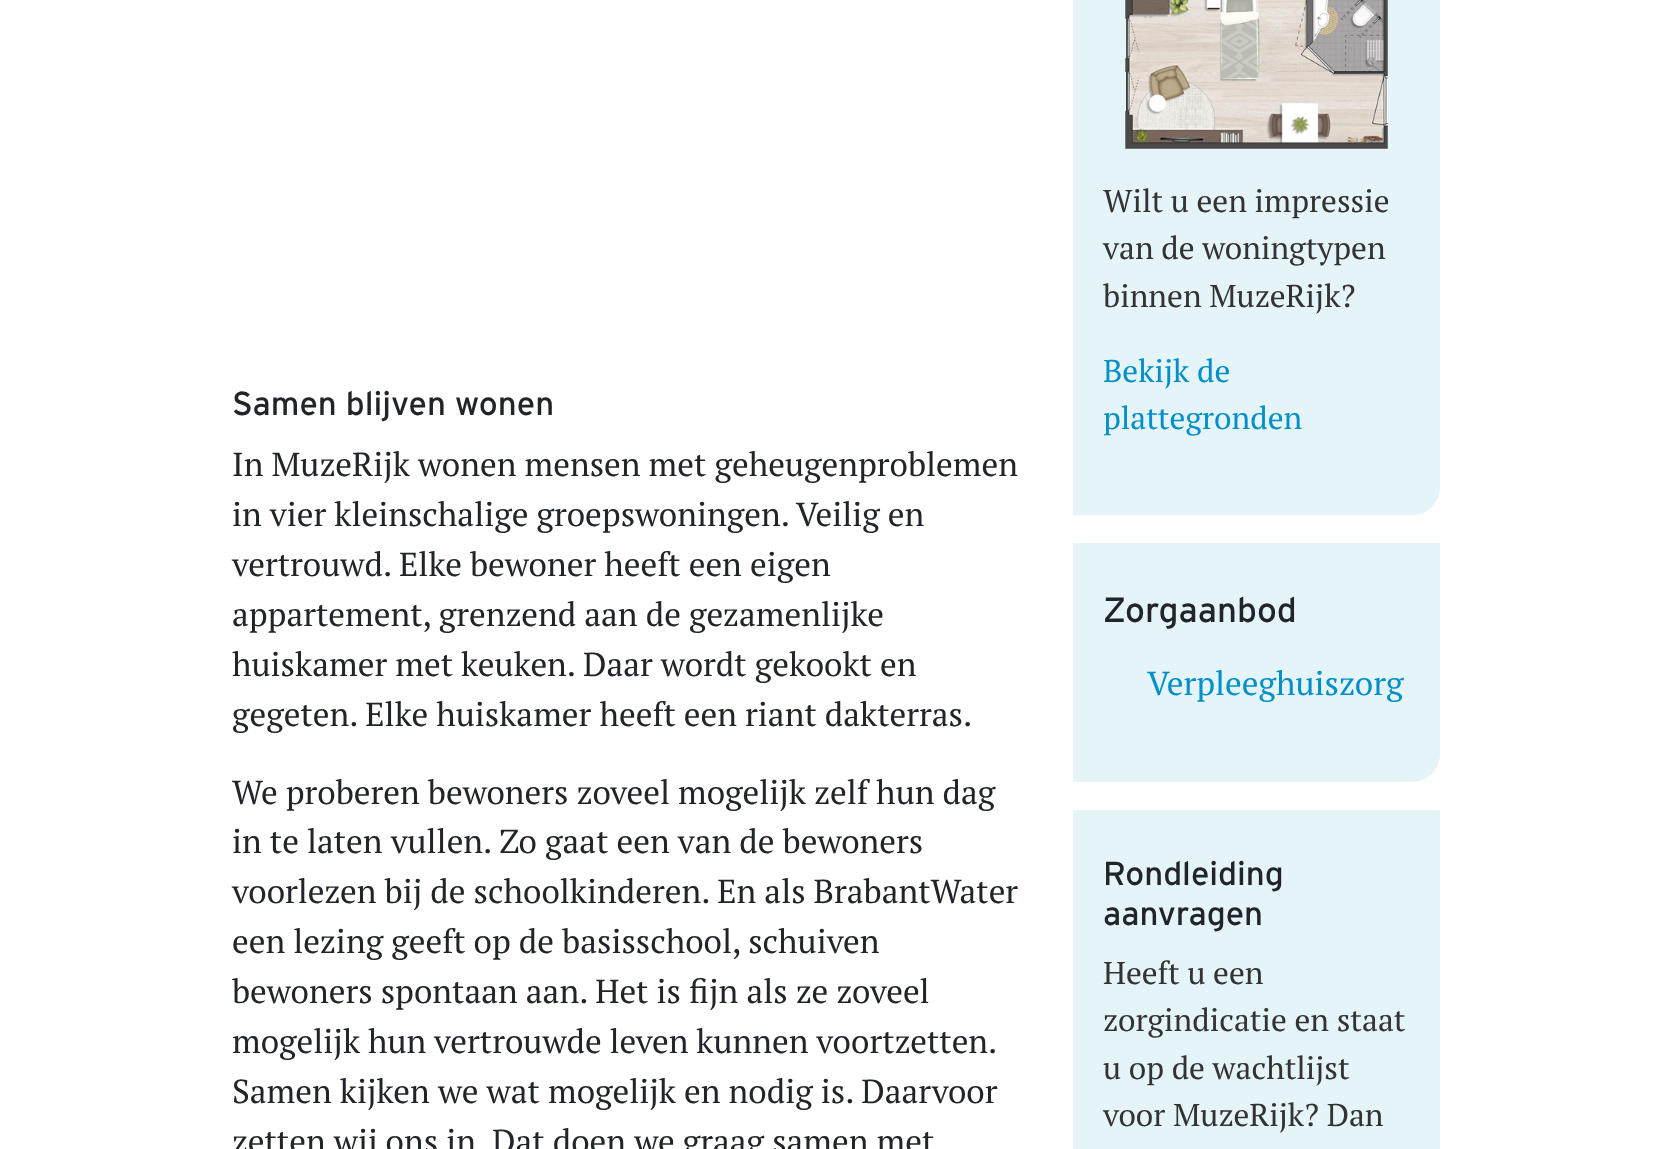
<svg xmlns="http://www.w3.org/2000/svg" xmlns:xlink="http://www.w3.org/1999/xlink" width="1671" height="1149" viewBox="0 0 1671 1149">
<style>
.cls-1{font:33.25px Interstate;fill:#212529}
.cls-2{font:33.25px PT Serif;fill:#212529}
.cls-3{font:31.5px PT Serif;fill:#333333}
.cls-4{font:31.5px PT Serif;fill:#008fc8}
.cls-5{font:35px Interstate;fill:#212529}
.cls-6{font:33.25px PT Serif;fill:#008fc8}
</style>
<rect width="100%" height="100%" fill="#ffffff"/>
<path fill="#e5f4f9" d="M1073-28H1440V487C1440 502.5 1427.5 515 1412 515H1073Z"/>
<image xlink:href="image0.png" x="1125" y="0" width="263" height="149"/>
<path fill="#e5f4f9" d="M1073 543H1440V754C1440 769.5 1427.5 782 1412 782H1073Z"/>
<rect fill="#e5f4f9" x="1073" y="810" width="367" height="339"/>
<text class="cls-1" x="232" y="415">Samen blijven wonen</text>
<text class="cls-2"><tspan x="232" y="476">In MuzeRijk wonen mensen met geheugenproblemen</tspan><tspan x="232" y="526">in vier kleinschalige groepswoningen. Veilig en</tspan><tspan x="232" y="576">vertrouwd. Elke bewoner heeft een eigen</tspan><tspan x="232" y="626">appartement, grenzend aan de gezamenlijke</tspan><tspan x="232" y="676">huiskamer met keuken. Daar wordt gekookt en</tspan><tspan x="232" y="726">gegeten. Elke huiskamer heeft een riant dakterras.</tspan></text>
<text class="cls-2"><tspan x="232" y="804">We proberen bewoners zoveel mogelijk zelf hun dag</tspan><tspan x="232" y="853">in te laten vullen. Zo gaat een van de bewoners</tspan><tspan x="232" y="903">voorlezen bij de schoolkinderen. En als BrabantWater</tspan><tspan x="232" y="953">een lezing geeft op de basisschool, schuiven</tspan><tspan x="232" y="1003">bewoners spontaan aan. Het is fijn als ze zoveel</tspan><tspan x="232" y="1053" word-spacing="-0.25">mogelijk hun vertrouwde leven kunnen voortzetten.</tspan><tspan x="232" y="1103">Samen kijken we wat mogelijk en nodig is. Daarvoor</tspan><tspan x="232" y="1153">zetten wij ons in. Dat doen we graag samen met</tspan></text>
<text class="cls-3"><tspan x="1103" y="212">Wilt u een impressie</tspan><tspan x="1103" y="259">van de woningtypen</tspan><tspan x="1103" y="307">binnen MuzeRijk?</tspan></text>
<text class="cls-4"><tspan x="1103" y="382">Bekijk de</tspan><tspan x="1103" y="429">plattegronden</tspan></text>
<text class="cls-5" x="1103" y="622">Zorgaanbod</text>
<text class="cls-6" x="1147" y="695">Verpleeghuiszorg</text>
<text class="cls-1"><tspan x="1103" y="885">Rondleiding</tspan><tspan x="1103" y="925">aanvragen</tspan></text>
<text class="cls-3"><tspan x="1103" y="984">Heeft u een</tspan><tspan x="1103" y="1031">zorgindicatie en staat</tspan><tspan x="1103" y="1079">u op de wachtlijst</tspan><tspan x="1103" y="1126">voor MuzeRijk? Dan</tspan></text>
</svg>
